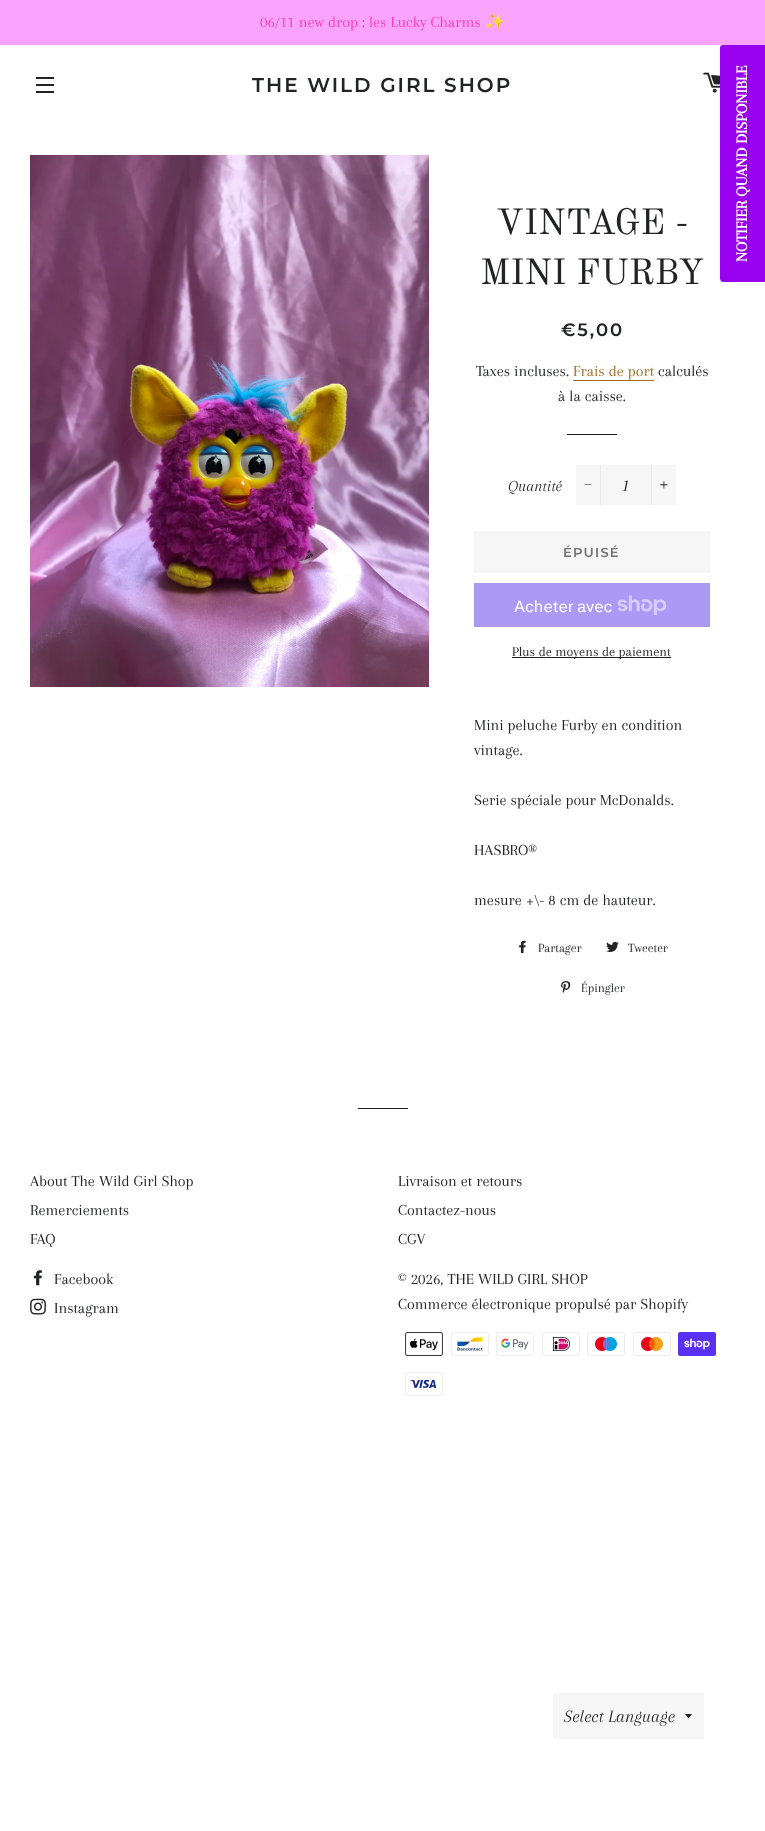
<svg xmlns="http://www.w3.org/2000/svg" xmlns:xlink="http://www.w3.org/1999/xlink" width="765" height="1831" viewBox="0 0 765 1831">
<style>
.cls-1{font:16px Arapey;fill:#ff39b4}
.cls-2{font:16px Noto Color Emoji;fill:#ff39b4}
.cls-3{font:600 20px Montserrat;letter-spacing:2px;fill:#222323}
.cls-4{font:bold 16px Arapey;fill:#ffffff}
.cls-5{font:36px Old Standard TT;fill:#222323}
.cls-6{font:600 18px Montserrat;letter-spacing:2px;fill:#222323}
.cls-7{font:16px Arapey;fill:#222323}
.cls-8{font:16px Arapey;fill:#a26b25}
.cls-9{font:italic 16px Arapey;fill:#222323}
.cls-10{font:italic 18px Arapey;fill:#1c1d1d}
.cls-11{font:600 13px Montserrat;letter-spacing:1.25px;fill:#717171}
.cls-12{font:16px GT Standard;fill:#ffffff}
.cls-13{font:14px Arapey;fill:#222323}
.cls-14{font:13px Arapey;fill:#222323}
</style>
<rect width="100%" height="100%" fill="#ffffff"/>
<rect fill="#f9a3ff" x="0" y="0" width="765" height="45"/>
<rect fill="#222323" x="36" y="77" width="18" height="2"/>
<rect fill="#222323" x="36" y="84" width="18" height="2"/>
<rect fill="#222323" x="36" y="91" width="18" height="2"/>
<image xlink:href="image0.png" x="703" y="72" width="17" height="21"/>
<path fill="#9900ef" d="M720 278V48C720 46 721 45 723 45H765V282H723C721 282 720 280 720 278Z"/>
<image xlink:href="image1.png" x="30" y="155" width="399" height="532"/>
<rect fill="#a26b25" x="573" y="380" width="81" height="1"/>
<rect fill="#1c1d1d" x="567" y="434" width="50" height="1"/>
<rect fill="#f6f6f6" x="576" y="465" width="100" height="40"/>
<rect fill="#e9e9e9" x="600" y="465" width="1" height="40"/>
<path fill="#1c1d1d" d="M584.5 484.5H591.5V485H584.5Z"/>
<rect fill="#e9e9e9" x="651" y="465" width="1" height="40"/>
<image xlink:href="image2.png" x="660" y="481" width="8" height="8"/>
<rect fill="#f6f6f6" x="474" y="531" width="236" height="42"/>
<rect fill="#aa99f5" x="474" y="583" width="236" height="44"/>
<image xlink:href="image3.png" x="617" y="595" width="50" height="20"/>
<rect fill="#222323" x="512" y="657" width="159" height="1"/>
<image xlink:href="image4.png" x="519" y="940" width="7" height="14"/>
<image xlink:href="image5.png" x="606" y="941" width="13" height="11"/>
<image xlink:href="image6.png" x="561" y="981" width="10" height="12"/>
<rect fill="#1c1d1d" x="358" y="1108" width="50" height="1"/>
<image xlink:href="image7.png" x="33" y="1270" width="9" height="16"/>
<image xlink:href="image8.png" x="30" y="1298" width="16" height="17"/>
<image xlink:href="image9.png" x="405" y="1332" width="38" height="24"/>
<image xlink:href="image10.png" x="451" y="1332" width="38" height="24"/>
<image xlink:href="image11.png" x="496" y="1332" width="38" height="24"/>
<image xlink:href="image12.png" x="542" y="1332" width="38" height="24"/>
<image xlink:href="image13.png" x="587" y="1332" width="38" height="24"/>
<image xlink:href="image14.png" x="633" y="1332" width="38" height="24"/>
<image xlink:href="image15.png" x="678" y="1332" width="38" height="24"/>
<image xlink:href="image16.png" x="405" y="1372" width="38" height="24"/>
<rect fill="#f6f6f6" x="553" y="1693" width="151" height="46"/>
<path fill="#222323" d="M685 1714C689.5 1719.5 687.5 1719.5 692 1714Z"/>
<text class="cls-1" x="260" y="27">06/11 new drop : les Lucky Charms</text>
<text class="cls-2" x="485" y="27">✨</text>
<text class="cls-3" x="252" y="92">THE WILD GIRL SHOP</text>
<text class="cls-4" x="747" y="262" transform="rotate(-90 747 262)">NOTIFIER QUAND DISPONIBLE</text>
<text class="cls-5" x="496" y="234">VINTAGE -</text>
<text class="cls-5" x="480" y="284">MINI FURBY</text>
<text class="cls-6" x="561" y="336">€5,00</text>
<text class="cls-7" x="476" y="376">Taxes incluses.</text>
<text class="cls-8" x="573" y="376">Frais de port</text>
<text class="cls-7" x="658" y="376">calculés</text>
<text class="cls-7" x="558" y="401">à la caisse.</text>
<text class="cls-9" x="508" y="491">Quantité</text>
<text class="cls-10" x="623" y="491">1</text>
<text class="cls-11" x="563" y="557">ÉPUISÉ</text>
<text class="cls-12" x="514" y="612">Acheter avec</text>
<text class="cls-13" x="512" y="656">Plus de moyens de paiement</text>
<text class="cls-7"><tspan x="474" y="730">Mini peluche Furby en condition</tspan><tspan x="474" y="755">vintage.</tspan></text>
<text class="cls-7" x="474" y="805">Serie spéciale pour McDonalds.</text>
<text class="cls-7" x="474" y="855">HASBRO®</text>
<text class="cls-7" x="474" y="905">mesure +\- 8 cm de hauteur.</text>
<text class="cls-14" x="538" y="952">Partager</text>
<text class="cls-14" x="628" y="952">Tweeter</text>
<text class="cls-14" x="581" y="992">Épingler</text>
<text class="cls-7"><tspan x="30" y="1186">About The Wild Girl Shop</tspan><tspan x="30" y="1215">Remerciements</tspan><tspan x="30" y="1244">FAQ</tspan></text>
<text class="cls-7"><tspan x="398" y="1186">Livraison et retours</tspan><tspan x="398" y="1215">Contactez-nous</tspan><tspan x="398" y="1244">CGV</tspan></text>
<text class="cls-7"><tspan x="54" y="1284">Facebook</tspan><tspan x="54" y="1313">Instagram</tspan></text>
<text class="cls-7"><tspan x="398" y="1284">© 2026, THE WILD GIRL SHOP</tspan><tspan x="398" y="1309">Commerce électronique propulsé par Shopify</tspan></text>
<text class="cls-10" x="564" y="1722">Select Language</text>
</svg>
